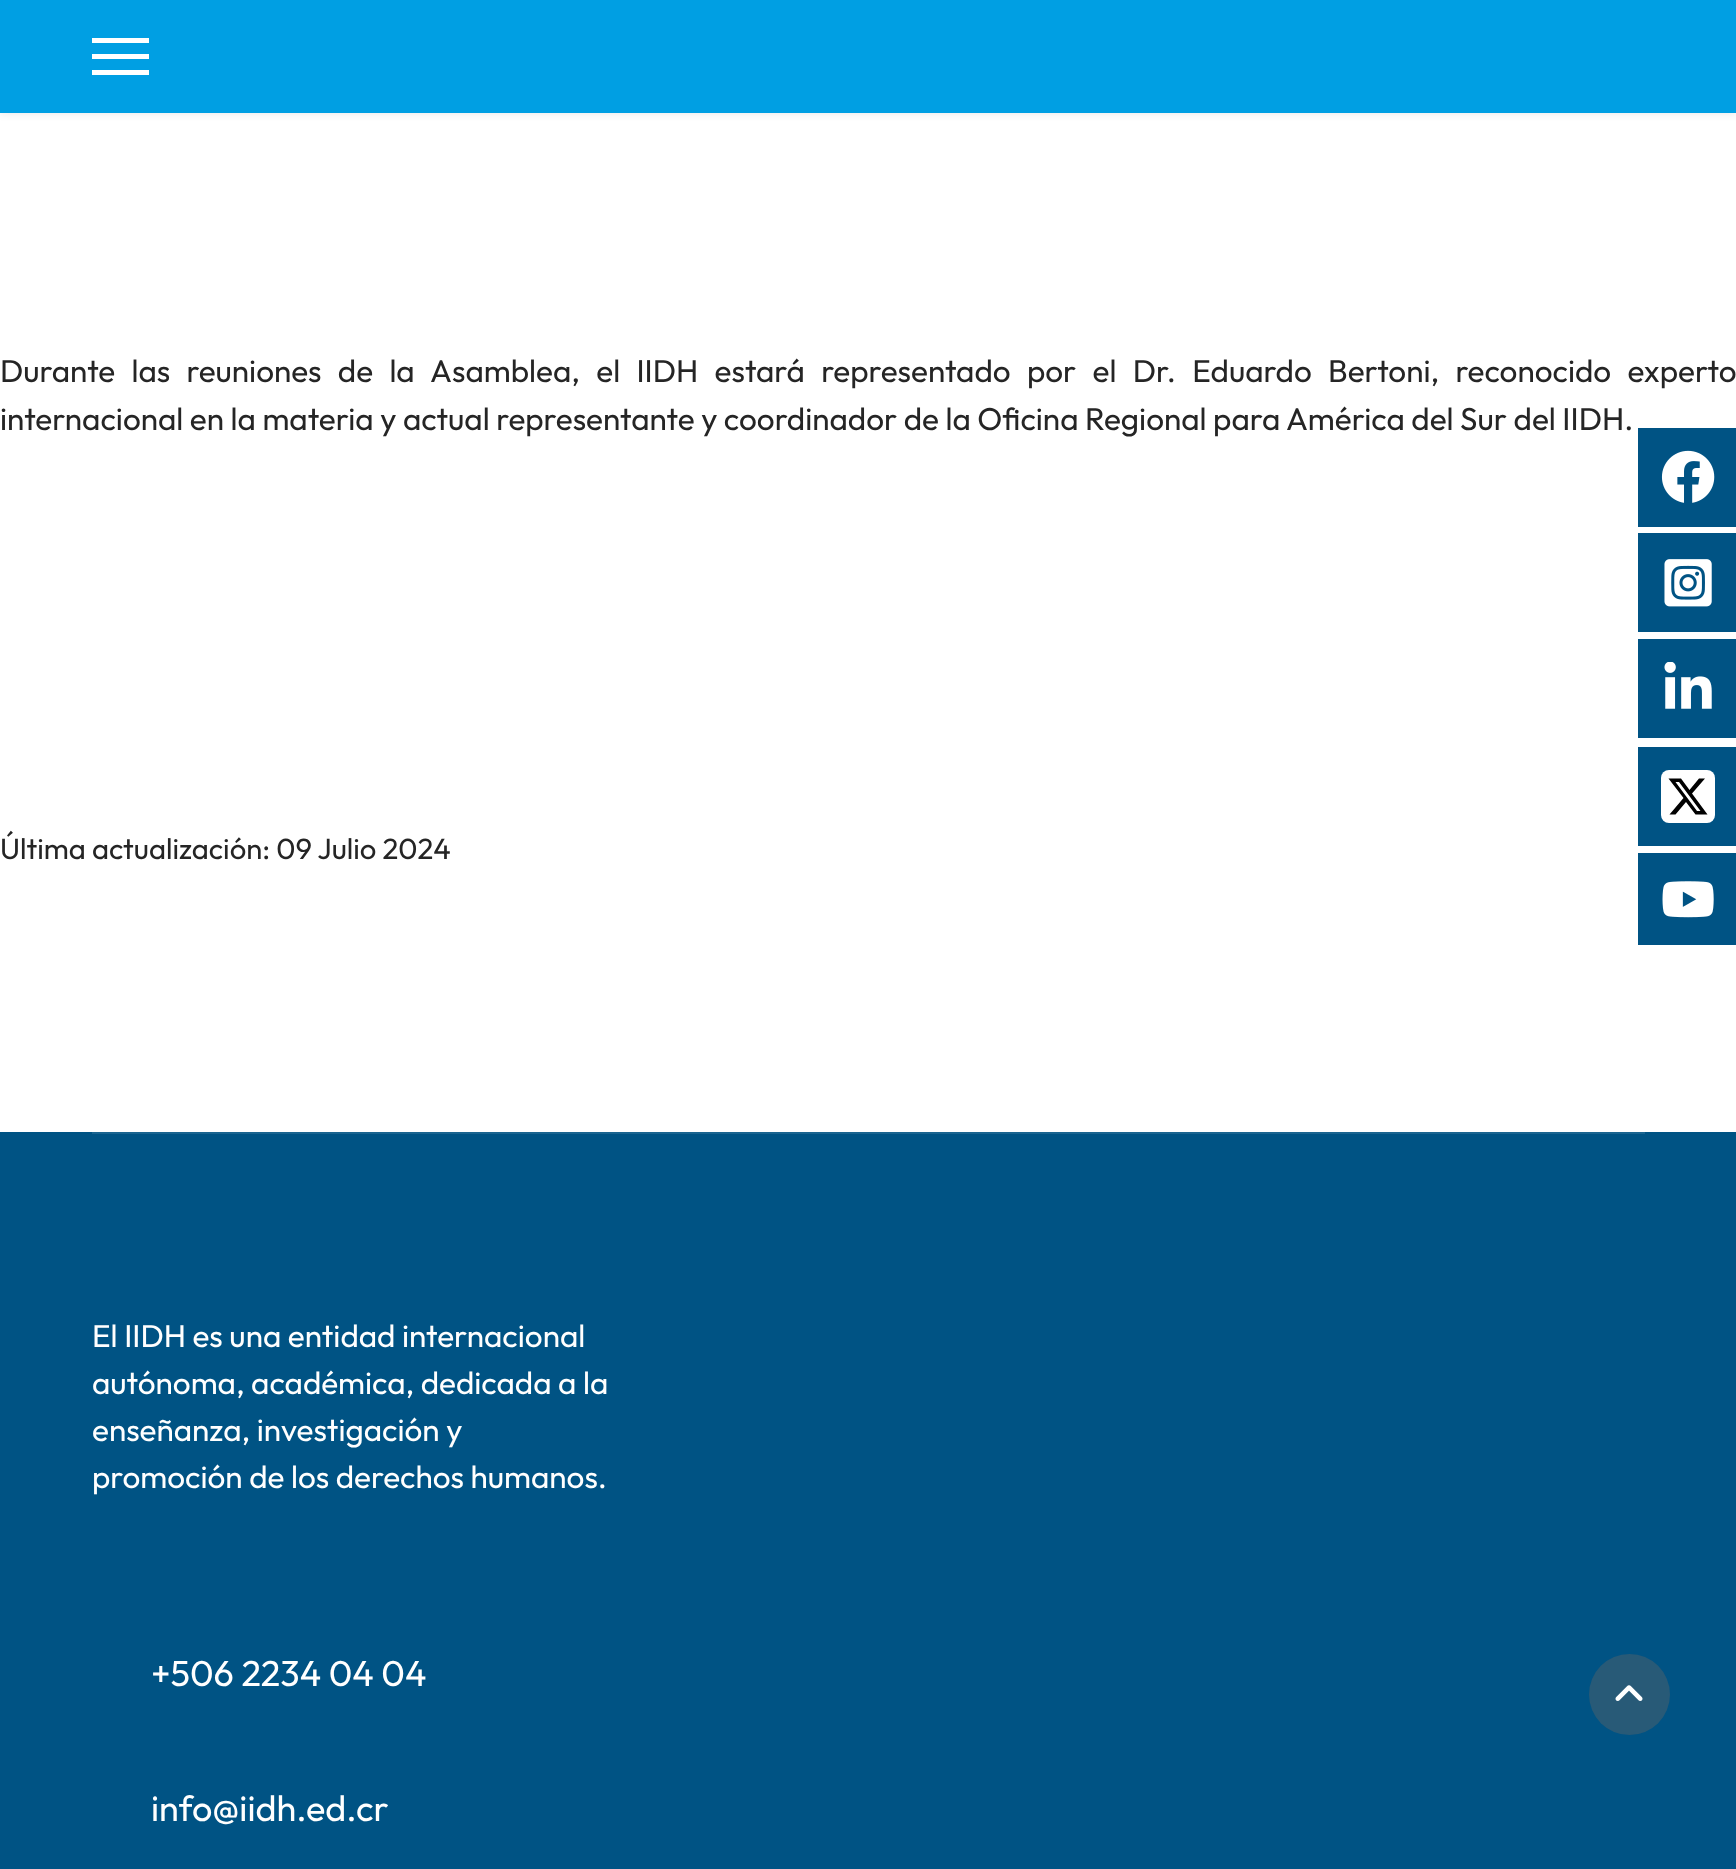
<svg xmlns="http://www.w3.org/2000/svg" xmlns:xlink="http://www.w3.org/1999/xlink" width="1736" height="1869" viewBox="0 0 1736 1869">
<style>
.cls-1{font:31.5px Outfit;fill:#252525}
.cls-2{font:29.25px Outfit;fill:#252525}
.cls-3{font:31.5px Outfit;fill:#ffffff}
.cls-4{font:36px Outfit;fill:#ffffff}
</style>
<rect width="100%" height="100%" fill="#ffffff"/>
<rect fill="#000000" fill-opacity="0.1" filter="blur(4.5px)" x="0" y="0" width="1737" height="113"/>
<rect fill="#009fe3" x="0" y="0" width="1736" height="113"/>
<rect fill="#ffffff" x="92" y="38" width="57" height="5"/>
<rect fill="#ffffff" x="92" y="54" width="57" height="5"/>
<rect fill="#ffffff" x="92" y="70" width="57" height="5"/>
<rect fill="#005384" x="0" y="1132" width="1736" height="737"/>
<rect fill="#1a6490" x="92" y="1132" width="1553" height="2"/>
<rect fill="#005384" x="1638" y="428" width="98" height="99"/>
<image xlink:href="image0.png" x="1661" y="450" width="54" height="53"/>
<rect fill="#005384" x="1638" y="533" width="98" height="99"/>
<image xlink:href="image1.png" x="1664" y="559" width="48" height="48"/>
<rect fill="#005384" x="1638" y="639" width="98" height="99"/>
<image xlink:href="image2.png" x="1664" y="662" width="48" height="47"/>
<rect fill="#005384" x="1638" y="747" width="98" height="99"/>
<rect fill="#ffffff" x="1661" y="770" width="54" height="53" rx="8"/>
<path fill="#010101" d="M1697 811H1700.5L1679 782H1675.5ZM1699 778.5H1705L1692 793.5L1707.5 814.5H1695.5L1686 802L1675.5 814.5H1669.5L1683.5 798L1668.5 778.5H1681L1689.5 790Z"/>
<rect fill="#005384" x="1638" y="853" width="98" height="92"/>
<image xlink:href="image3.png" x="1662" y="881" width="52" height="37"/>
<circle fill="#285a77" cx="1629.5" cy="1694.5" r="40.5"/>
<image xlink:href="image4.png" x="1615" y="1685" width="28" height="16"/>
<text class="cls-1"><tspan x="0" y="382" word-spacing="9.75">Durante las reuniones de la Asamblea, el IIDH estará representado por el Dr. Eduardo Bertoni, reconocido experto</tspan><tspan x="0" y="430">internacional en la materia y actual representante y coordinador de la Oficina Regional para América del Sur del IIDH.</tspan></text>
<text class="cls-2" x="0" y="859">Última actualización: 09 Julio 2024</text>
<text class="cls-3"><tspan x="92" y="1347">El IIDH es una entidad internacional</tspan><tspan x="92" y="1394">autónoma, académica, dedicada a la</tspan><tspan x="92" y="1441">enseñanza, investigación y</tspan><tspan x="92" y="1488">promoción de los derechos humanos.</tspan></text>
<text class="cls-4" x="151" y="1686">+506 2234 04 04</text>
<text class="cls-4" x="151" y="1821">info@iidh.ed.cr</text>
</svg>
